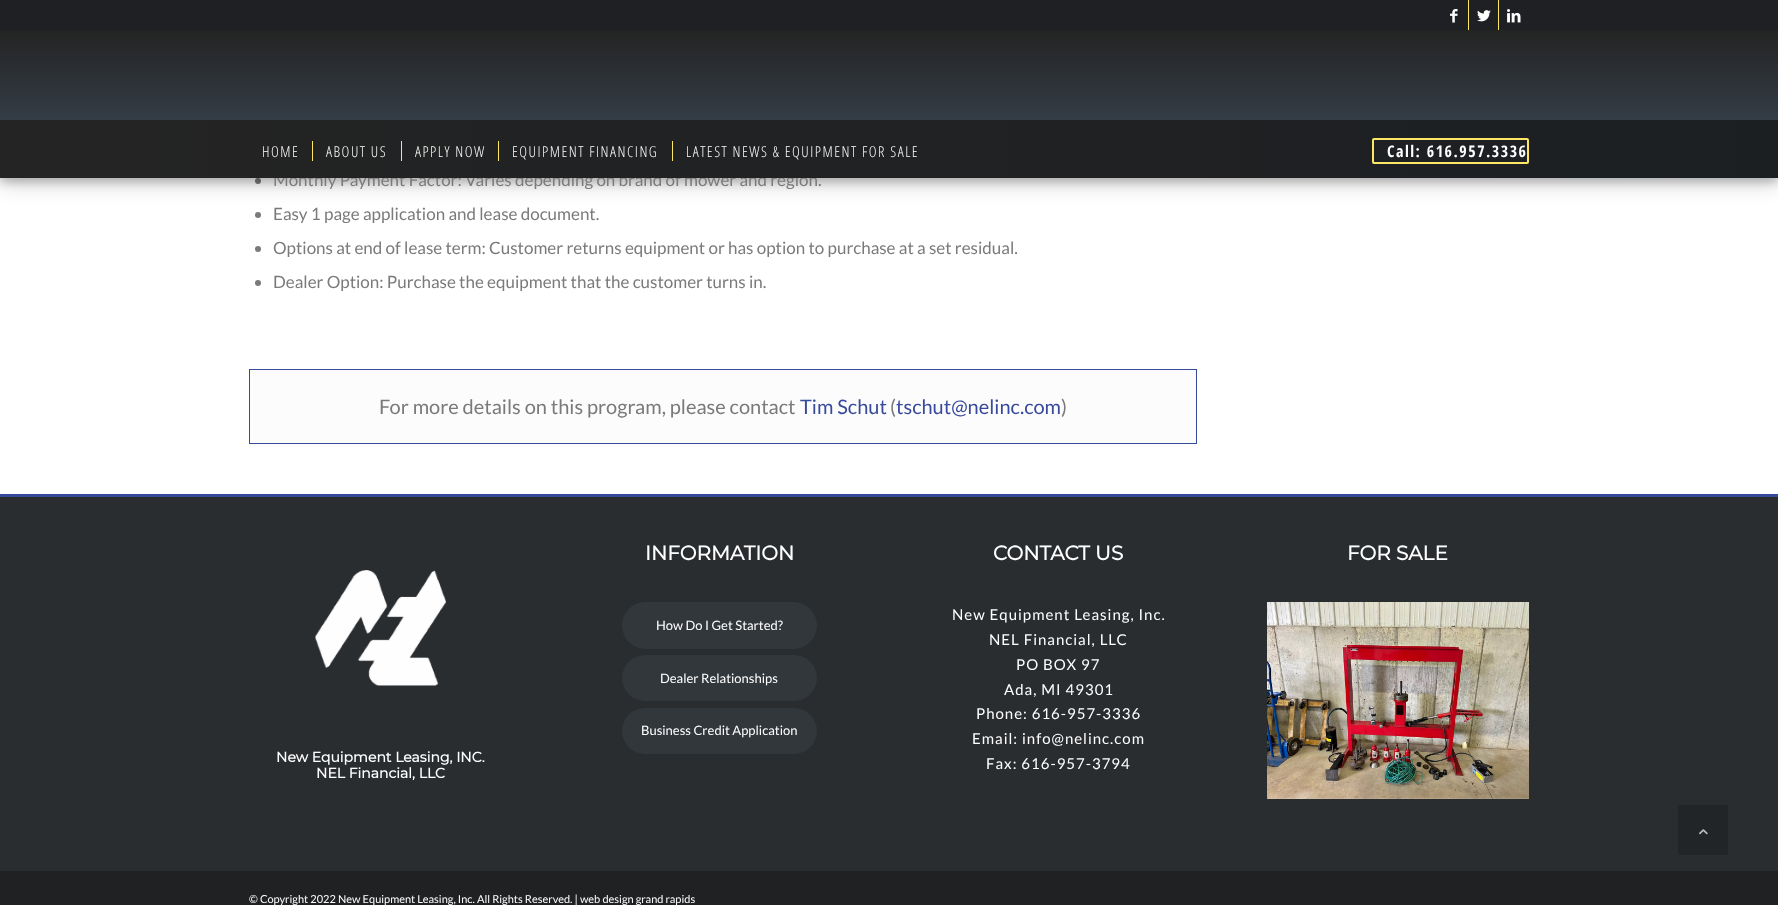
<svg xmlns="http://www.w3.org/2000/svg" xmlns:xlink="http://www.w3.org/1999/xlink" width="1778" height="905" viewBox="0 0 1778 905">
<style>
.cls-1{font:17px Lato;fill:#7a7a7a}
.cls-2{font:bold 16px Open Sans Condensed;letter-spacing:1.5px;fill:#ffffff}
.cls-3{font:300 15px Open Sans Condensed;letter-spacing:1.5px;fill:#ffffff}
.cls-4{font:20px Lato;fill:#7a7a7a}
.cls-5{font:20px Lato;fill:#384a9b}
.cls-6{font:bold 20px Montserrat;fill:#ffffff}
.cls-7{font:13px Lato;fill:#ffffff}
.cls-8{font:15px Lato;letter-spacing:1px;fill:#ffffff}
.cls-9{font:bold 14px Montserrat;fill:#ffffff}
.cls-10{font:11px Lato;fill:#ffffff}
</style>
<defs>
<linearGradient id="g1" gradientUnits="userSpaceOnUse" x1="889" y1="30" x2="889" y2="178"><stop offset="0" stop-color="#242424"/><stop offset="1" stop-color="#3e4c5b"/></linearGradient>
<linearGradient id="g2" gradientUnits="userSpaceOnUse" x1="0" y1="149" x2="1778" y2="149"><stop offset="0" stop-color="#242424"/><stop offset="1" stop-color="#1c1f22"/></linearGradient>
</defs>
<rect width="100%" height="100%" fill="#ffffff"/>
<circle fill="#7a7a7a" cx="258" cy="181" r="3"/>
<circle fill="#7a7a7a" cx="258" cy="215" r="3"/>
<rect fill="#000000" fill-opacity="0.19" filter="blur(10px)" x="0" y="6" width="1778" height="178"/>
<rect fill="#000000" fill-opacity="0.2" filter="blur(4px)" x="0" y="4" width="1778" height="178"/>
<rect fill="#1e2023" x="0" y="0" width="1778" height="30"/>
<rect fill="#fce866" x="1468" y="0" width="1" height="30"/>
<image xlink:href="image0.png" x="1450" y="9" width="8" height="14"/>
<rect fill="#fce866" x="1498" y="0" width="1" height="30"/>
<image xlink:href="image1.png" x="1477" y="10" width="14" height="12"/>
<image xlink:href="image2.png" x="1507" y="9" width="14" height="14"/>
<rect fill="url(#g1)" x="0" y="30" width="1778" height="90"/>
<circle fill="#7a7a7a" cx="258" cy="249" r="3"/>
<circle fill="#7a7a7a" cx="258" cy="283" r="3"/>
<rect fill="#fcfcfc" stroke="#384a9b" x="249.5" y="369.5" width="947" height="74"/>
<rect fill="#2a2d30" x="0" y="497" width="1778" height="374"/>
<rect fill="#384a9b" x="0" y="494" width="1778" height="3"/>
<rect fill="#32373c" x="622" y="602" width="195" height="47" rx="23.5"/>
<rect fill="#32373c" x="622" y="655" width="195" height="46" rx="23"/>
<rect fill="#32373c" x="622" y="708" width="195" height="46" rx="23"/>
<image xlink:href="image3.png" x="1267" y="602" width="262" height="197"/>
<image xlink:href="image4.png" x="315" y="570" width="131" height="116"/>
<rect fill="#1f2123" x="0" y="871" width="1778" height="34"/>
<rect fill="#222527" x="1678" y="805" width="50" height="50" rx="2"/>
<image xlink:href="image5.png" x="1699" y="829" width="9" height="6"/>
<text class="cls-1" x="273" y="186">Monthly Payment Factor: Varies depending on brand of mower and region.</text>
<rect fill="url(#g2)" x="0" y="120" width="1778" height="58"/>
<rect fill="none" stroke="#fce866" stroke-width="2" x="1373" y="139" width="155" height="24" rx="1"/>
<text class="cls-2" x="1387" y="157">Call: 616.957.3336</text>
<text class="cls-3" x="686" y="157">LATEST NEWS &amp; EQUIPMENT FOR SALE</text>
<rect fill="#fce866" x="672" y="141" width="1" height="20"/>
<text class="cls-3" x="512" y="157">EQUIPMENT FINANCING</text>
<rect fill="#fce866" x="498" y="141" width="1" height="20"/>
<text class="cls-3" x="415" y="157">APPLY NOW</text>
<rect fill="#fce866" x="401" y="141" width="1" height="20"/>
<text class="cls-3" x="326" y="157">ABOUT US</text>
<rect fill="#fce866" x="312" y="141" width="1" height="20"/>
<text class="cls-3" x="262" y="157">HOME</text>
<text class="cls-1" x="273" y="220">Easy 1 page application and lease document.</text>
<text class="cls-1" x="273" y="254">Options at end of lease term: Customer returns equipment or has option to purchase at a set residual.</text>
<text class="cls-1" x="273" y="288">Dealer Option: Purchase the equipment that the customer turns in.</text>
<text class="cls-4" x="379" y="414">For more details on this program, please contact</text>
<text class="cls-5" x="800" y="414">Tim Schut</text>
<text class="cls-4" x="890" y="414">(</text>
<text class="cls-5" x="896" y="414">tschut@nelinc.com</text>
<text class="cls-4" x="1061" y="414">)</text>
<text class="cls-6" x="645" y="560">INFORMATION</text>
<text class="cls-7" x="656" y="630">How Do I Get Started?</text>
<text class="cls-7" x="660" y="683">Dealer Relationships</text>
<text class="cls-7" x="641" y="735">Business Credit Application</text>
<text class="cls-6" x="993" y="560">CONTACT US</text>
<text class="cls-8" x="952" y="620">New Equipment Leasing, Inc.</text>
<text class="cls-8" x="989" y="645">NEL Financial, LLC</text>
<text class="cls-8" x="1016" y="670">PO BOX 97</text>
<text class="cls-8" x="1004" y="695">Ada, MI 49301</text>
<text class="cls-8" x="976" y="719">Phone: 616-957-3336</text>
<text class="cls-8" x="972" y="744">Email: info@nelinc.com</text>
<text class="cls-8" x="986" y="769">Fax: 616-957-3794</text>
<text class="cls-6" x="1347" y="560">FOR SALE</text>
<text class="cls-9" x="276" y="762">New Equipment Leasing, INC.</text>
<text class="cls-9" x="316" y="778">NEL Financial, LLC</text>
<text class="cls-10" x="249" y="903">© Copyright 2022 New Equipment Leasing, Inc. All Rights Reserved. | web design grand rapids</text>
</svg>
